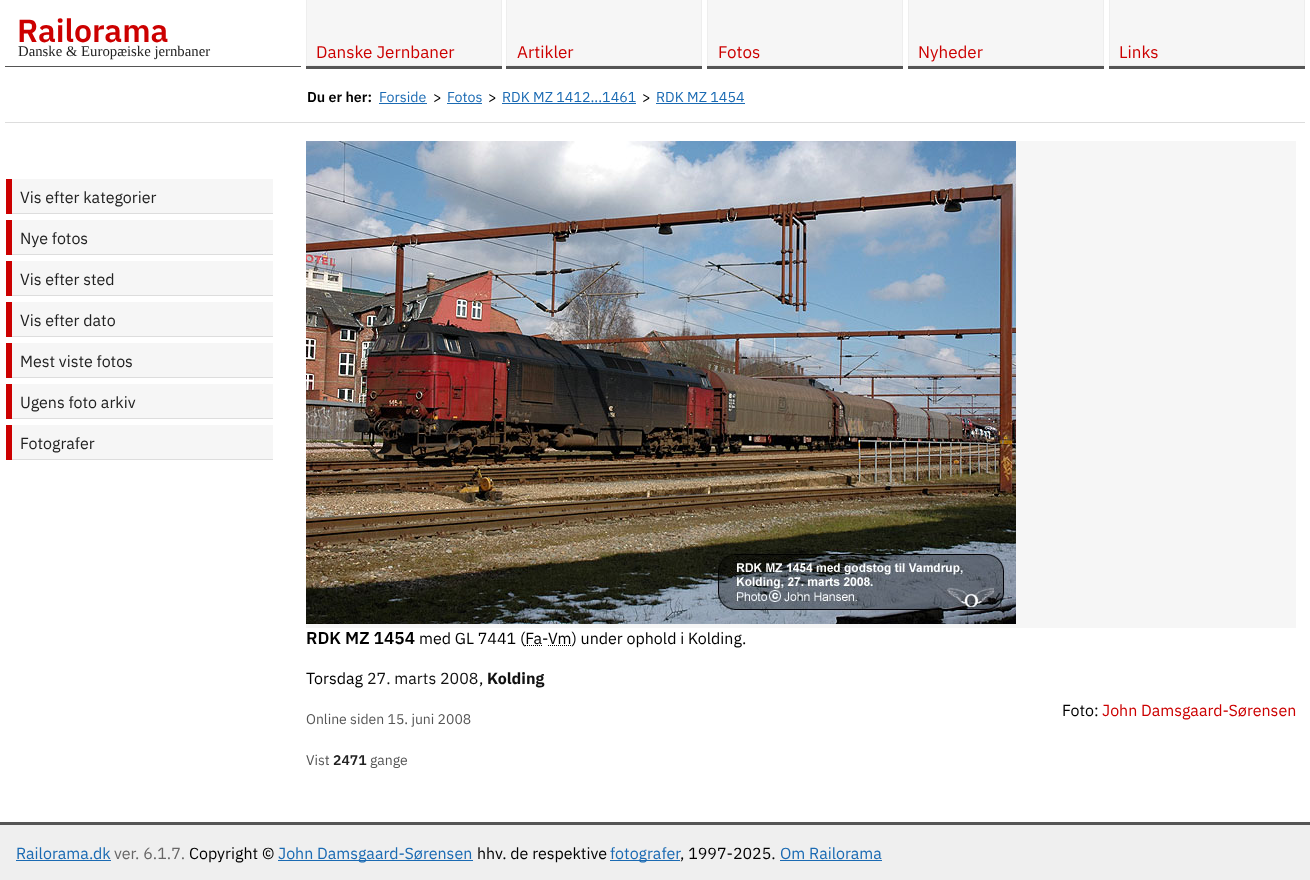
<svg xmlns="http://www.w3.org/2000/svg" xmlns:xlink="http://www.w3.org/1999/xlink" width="1310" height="880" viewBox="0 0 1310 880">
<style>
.cls-1{font:600 32px IBM Plex Sans;fill:#cc0000}
.cls-2{font:14.75px Liberation Serif;fill:#222222}
.cls-3{font:17px IBM Plex Sans;fill:#cc0000}
.cls-4{font:600 14.25px IBM Plex Sans;fill:#000000}
.cls-5{font:14.25px IBM Plex Sans;fill:#1a6ab3}
.cls-6{font:14.25px IBM Plex Sans;fill:#000000}
.cls-7{font:16px IBM Plex Sans;fill:#222222}
.cls-8{font:600 17.25px IBM Plex Sans;fill:#000000}
.cls-9{font:16px IBM Plex Sans;fill:#000000}
.cls-10{font:16px IBM Plex Sans;fill:#111111}
.cls-11{font:bold 16px IBM Plex Sans;fill:#111111}
.cls-12{font:14px IBM Plex Sans;fill:#555555}
.cls-13{font:16px IBM Plex Sans;fill:#cc0000}
.cls-14{font:600 14px IBM Plex Sans;fill:#222222}
.cls-15{font:16px IBM Plex Sans;fill:#1a6ab3}
.cls-16{font:16px IBM Plex Sans;fill:#686767}
</style>
<rect width="100%" height="100%" fill="#ffffff"/>
<rect fill="#555555" x="5" y="66" width="296" height="1"/>
<rect fill="#f6f6f6" x="307" y="0" width="194" height="65"/>
<rect fill="#eeeeee" x="501" y="0" width="1" height="66"/>
<rect fill="#eeeeee" x="306" y="65" width="196" height="1"/>
<rect fill="#eeeeee" x="306" y="0" width="1" height="66"/>
<rect fill="#555555" x="306" y="66" width="196" height="3"/>
<rect fill="#f6f6f6" x="507" y="0" width="194" height="65"/>
<rect fill="#eeeeee" x="701" y="0" width="1" height="66"/>
<rect fill="#eeeeee" x="506" y="65" width="196" height="1"/>
<rect fill="#eeeeee" x="506" y="0" width="1" height="66"/>
<rect fill="#555555" x="506" y="66" width="196" height="3"/>
<rect fill="#f6f6f6" x="708" y="0" width="194" height="65"/>
<rect fill="#eeeeee" x="902" y="0" width="1" height="66"/>
<rect fill="#eeeeee" x="707" y="65" width="196" height="1"/>
<rect fill="#eeeeee" x="707" y="0" width="1" height="66"/>
<rect fill="#555555" x="707" y="66" width="196" height="3"/>
<rect fill="#f6f6f6" x="909" y="0" width="194" height="65"/>
<rect fill="#eeeeee" x="1103" y="0" width="1" height="66"/>
<rect fill="#eeeeee" x="908" y="65" width="196" height="1"/>
<rect fill="#eeeeee" x="908" y="0" width="1" height="66"/>
<rect fill="#555555" x="908" y="66" width="196" height="3"/>
<rect fill="#f6f6f6" x="1110" y="0" width="194" height="65"/>
<rect fill="#eeeeee" x="1304" y="0" width="1" height="66"/>
<rect fill="#eeeeee" x="1109" y="65" width="196" height="1"/>
<rect fill="#eeeeee" x="1109" y="0" width="1" height="66"/>
<rect fill="#555555" x="1109" y="66" width="196" height="3"/>
<rect fill="#dddddd" x="5" y="122" width="1300" height="1"/>
<rect fill="#1a6ab3" x="379" y="103" width="48" height="1"/>
<rect fill="#1a6ab3" x="447" y="103" width="35" height="1"/>
<rect fill="#1a6ab3" x="502" y="103" width="134" height="1"/>
<rect fill="#1a6ab3" x="656" y="103" width="89" height="1"/>
<rect fill="#cc0000" x="6" y="179" width="6" height="35"/>
<rect fill="#f6f6f6" x="12" y="179" width="261" height="34"/>
<rect fill="#dddddd" x="12" y="213" width="261" height="1"/>
<rect fill="#cc0000" x="6" y="220" width="6" height="35"/>
<rect fill="#f6f6f6" x="12" y="220" width="261" height="34"/>
<rect fill="#dddddd" x="12" y="254" width="261" height="1"/>
<rect fill="#cc0000" x="6" y="261" width="6" height="35"/>
<rect fill="#f6f6f6" x="12" y="261" width="261" height="34"/>
<rect fill="#dddddd" x="12" y="295" width="261" height="1"/>
<rect fill="#cc0000" x="6" y="302" width="6" height="35"/>
<rect fill="#f6f6f6" x="12" y="302" width="261" height="34"/>
<rect fill="#dddddd" x="12" y="336" width="261" height="1"/>
<rect fill="#cc0000" x="6" y="343" width="6" height="35"/>
<rect fill="#f6f6f6" x="12" y="343" width="261" height="34"/>
<rect fill="#dddddd" x="12" y="377" width="261" height="1"/>
<rect fill="#cc0000" x="6" y="384" width="6" height="35"/>
<rect fill="#f6f6f6" x="12" y="384" width="261" height="34"/>
<rect fill="#dddddd" x="12" y="418" width="261" height="1"/>
<rect fill="#cc0000" x="6" y="425" width="6" height="35"/>
<rect fill="#f6f6f6" x="12" y="425" width="261" height="34"/>
<rect fill="#dddddd" x="12" y="459" width="261" height="1"/>
<rect fill="#f6f6f6" x="306" y="141" width="990" height="487"/>
<image xlink:href="image0.png" x="306" y="141" width="710" height="483"/>
<path fill="none" stroke="#000000" stroke-dasharray="1 1" d="M525 645.5H542M548 645.5H571.5"/>
<rect fill="#efefef" x="0" y="825" width="1310" height="55"/>
<rect fill="#555555" x="0" y="822" width="1310" height="3"/>
<rect fill="#1a6ab3" x="16" y="860" width="95" height="1"/>
<rect fill="#1a6ab3" x="278" y="860" width="195" height="1"/>
<rect fill="#1a6ab3" x="610" y="860" width="70" height="1"/>
<rect fill="#1a6ab3" x="780" y="860" width="102" height="1"/>
<text class="cls-1" x="17" y="42">Railorama</text>
<text class="cls-2" x="18" y="56">Danske &amp; Europæiske jernbaner</text>
<text class="cls-3" x="316" y="58">Danske Jernbaner</text>
<text class="cls-3" x="517" y="58">Artikler</text>
<text class="cls-3" x="718" y="58">Fotos</text>
<text class="cls-3" x="918" y="58">Nyheder</text>
<text class="cls-3" x="1119" y="58">Links</text>
<text class="cls-4" x="307" y="102">Du er her:</text>
<text class="cls-5" x="379" y="102">Forside</text>
<text class="cls-6" x="433" y="102">&gt;</text>
<text class="cls-5" x="447" y="102">Fotos</text>
<text class="cls-6" x="488" y="102">&gt;</text>
<text class="cls-5" x="502" y="102">RDK MZ 1412...1461</text>
<text class="cls-6" x="642" y="102">&gt;</text>
<text class="cls-5" x="656" y="102">RDK MZ 1454</text>
<text class="cls-7" x="20" y="203">Vis efter kategorier</text>
<text class="cls-7" x="20" y="244">Nye fotos</text>
<text class="cls-7" x="20" y="285">Vis efter sted</text>
<text class="cls-7" x="20" y="326">Vis efter dato</text>
<text class="cls-7" x="20" y="367">Mest viste fotos</text>
<text class="cls-7" x="20" y="408">Ugens foto arkiv</text>
<text class="cls-7" x="20" y="449">Fotografer</text>
<text class="cls-8" x="306" y="644">RDK MZ 1454</text>
<text class="cls-9" x="419" y="644">med GL 7441 (Fa-</text>
<text class="cls-9" x="548" y="644">Vm) under ophold i Kolding.</text>
<text class="cls-9" x="306" y="684">Torsdag</text>
<text class="cls-10" x="367" y="684">27. marts 2008</text>
<text class="cls-9" x="479" y="684">,</text>
<text class="cls-11" x="487" y="684">Kolding</text>
<text class="cls-12" x="306" y="724">Online siden 15. juni 2008</text>
<text class="cls-9" x="1062" y="716">Foto:</text>
<text class="cls-13" x="1102" y="716">John Damsgaard-Sørensen</text>
<text class="cls-12" x="306" y="765">Vist</text>
<text class="cls-14" x="333" y="765">2471</text>
<text class="cls-12" x="370" y="765">gange</text>
<text class="cls-15" x="16" y="859">Railorama.dk</text>
<text class="cls-16" x="114" y="859">ver. 6.1.7.</text>
<text class="cls-9" x="189" y="859">Copyright ©</text>
<text class="cls-15" x="278" y="859">John Damsgaard-Sørensen</text>
<text class="cls-9" x="477" y="859">hhv. de respektive</text>
<text class="cls-15" x="610" y="859">fotografer</text>
<text class="cls-9" x="680" y="859">, 1997-2025.</text>
<text class="cls-15" x="780" y="859">Om Railorama</text>
</svg>
